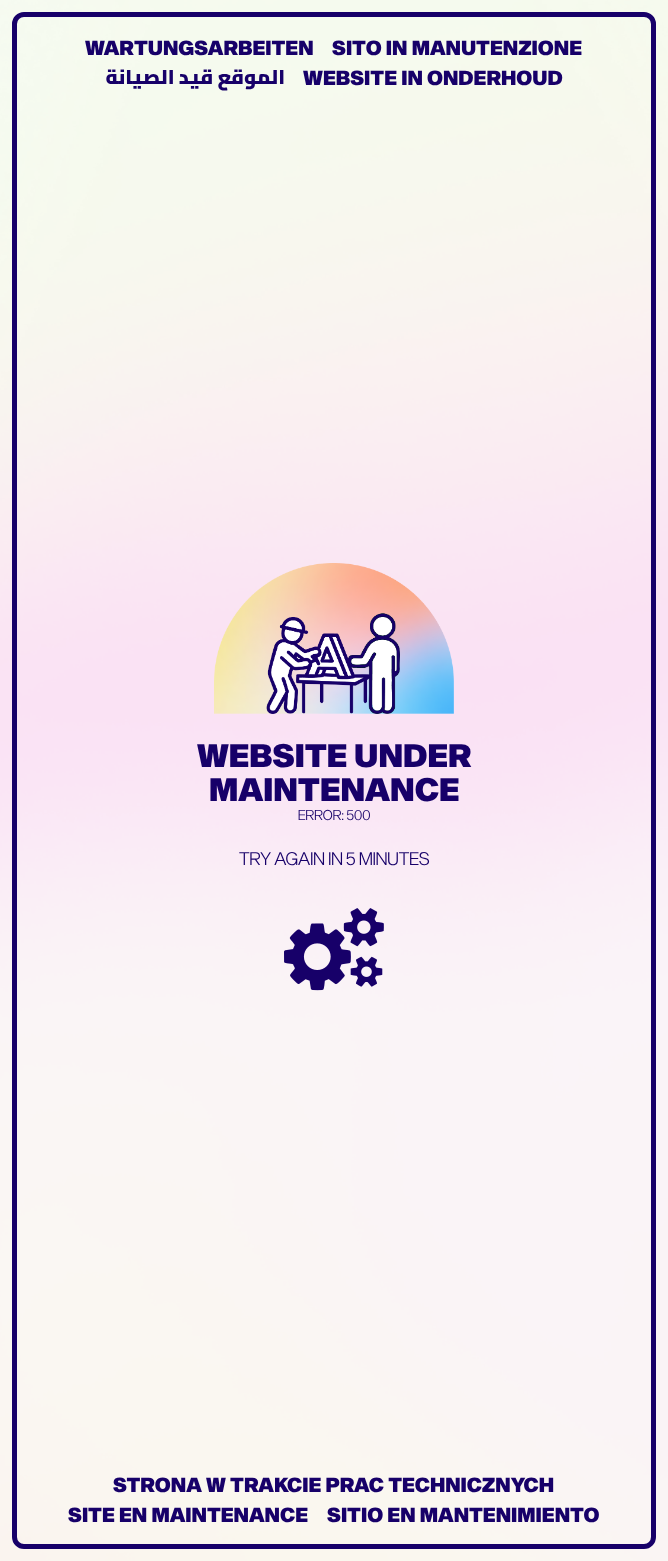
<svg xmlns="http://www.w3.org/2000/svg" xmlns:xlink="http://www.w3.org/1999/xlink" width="668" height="1561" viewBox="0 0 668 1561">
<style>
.cls-1{font:900 20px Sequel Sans;fill:#170069}
.cls-2{font:900 20px Cairo;direction:rtl;fill:#170069}
.cls-3{font:900 32px Sequel Sans;fill:#170069}
.cls-4{font:300 14px Sequel Sans;fill:#170069}
.cls-5{font:300 18px Sequel Sans;fill:#170069}
</style>
<rect width="100%" height="100%" fill="#f9fafa"/>
<image xlink:href="image0.png" x="0" y="0" width="668" height="1561"/>
<rect fill="none" stroke="#170069" stroke-width="5" x="14.5" y="14.5" width="639" height="1532" rx="9.5"/>
<image xlink:href="image1.png" x="214" y="563" width="240" height="151"/>
<image xlink:href="image2.png" x="284" y="908" width="100" height="83"/>
<text class="cls-1" x="85" y="55">WARTUNGSARBEITEN</text>
<text class="cls-1" x="332" y="55">SITO IN MANUTENZIONE</text>
<text class="cls-2" x="285" y="84">الموقع قيد الصيانة</text>
<text class="cls-1" x="303" y="85">WEBSITE IN ONDERHOUD</text>
<text class="cls-3" x="197" y="767">WEBSITE UNDER</text>
<text class="cls-3" x="209" y="801">MAINTENANCE</text>
<text class="cls-4" x="298" y="820">ERROR: 500</text>
<text class="cls-5" x="239" y="865">TRY AGAIN IN 5 MINUTES</text>
<text class="cls-1" x="113" y="1492">STRONA W TRAKCIE PRAC TECHNICZNYCH</text>
<text class="cls-1" x="68" y="1522">SITE EN MAINTENANCE</text>
<text class="cls-1" x="327" y="1522">SITIO EN MANTENIMIENTO</text>
</svg>
